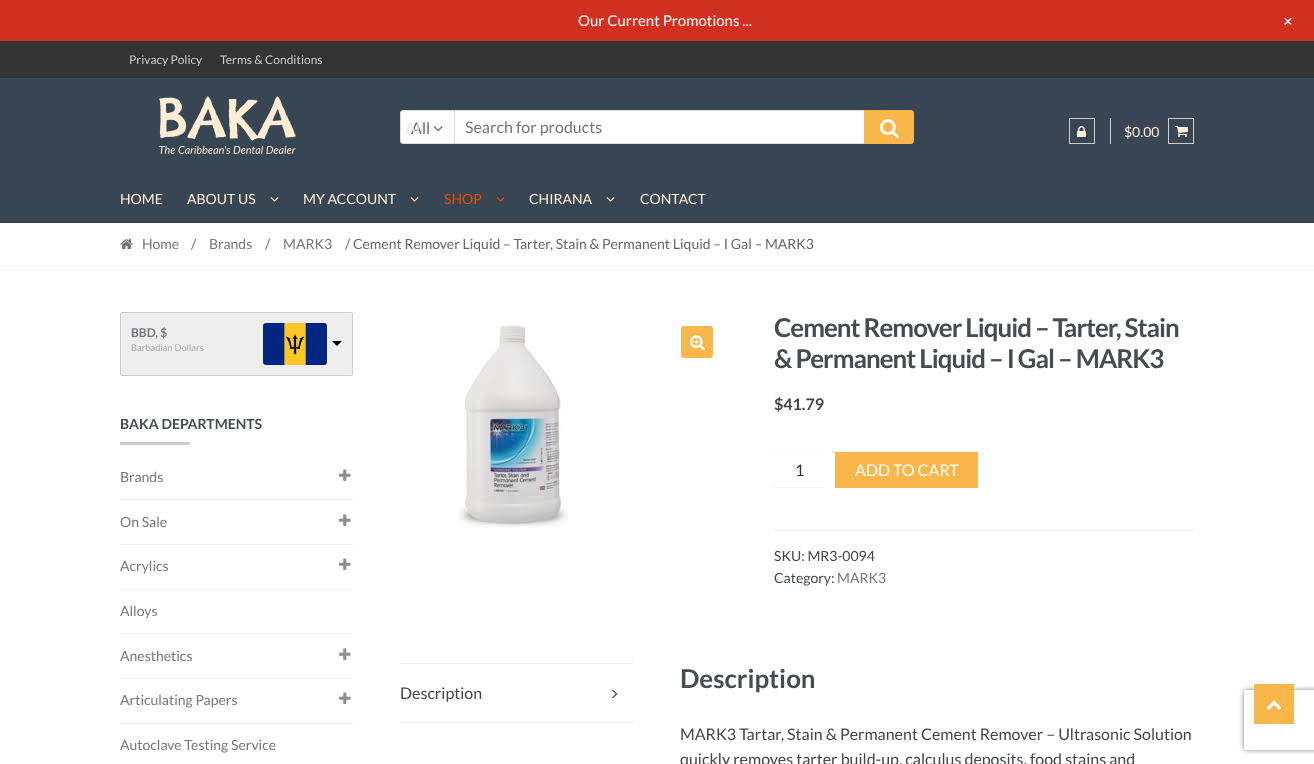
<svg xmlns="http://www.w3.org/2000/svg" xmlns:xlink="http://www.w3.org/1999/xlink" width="1314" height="764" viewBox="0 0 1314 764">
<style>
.cls-1{font:15px Lato;fill:#ffffff}
.cls-2{font:18px Lato;fill:#ffffff}
.cls-3{font:12px Lato;fill:#cccccc}
.cls-4{font:16px Lato;fill:#666666}
.cls-5{font:16px Lato;fill:#e9e9e9}
.cls-6{font:16px Lato;fill:#757575}
.cls-7{font:14px Lato;fill:#ffedd5}
.cls-8{font:14px Lato;fill:#e64d00}
.cls-9{font:14px Lato;fill:#75777d}
.cls-10{font:14px Lato;fill:#666666}
.cls-11{font:bold 12px Lato;fill:#75777d}
.cls-12{font:9.25px Lato;fill:#aaaaaa}
.cls-13{font:bold 14px Lato;fill:#484c51}
.cls-14{font:bold 25.9px Lato;letter-spacing:-1px;fill:#484c51}
.cls-15{font:bold 16px Lato;fill:#43454b}
.cls-16{font:16px Lato;fill:#333333}
.cls-17{font:16px Lato;fill:#ffffff}
.cls-18{font:14px Lato;fill:#43454b}
.cls-19{font:16px Lato;fill:#43454b}
.cls-20{font:bold 25.9px Lato;fill:#484c51}
</style>
<defs>
<clipPath id="clip1"><path d="M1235 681H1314V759H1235ZM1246 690H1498C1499 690 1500 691 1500 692V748C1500 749 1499 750 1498 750H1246C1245 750 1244 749 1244 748V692C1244 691 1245 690 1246 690Z" clip-rule="evenodd"/></clipPath>
</defs>
<rect width="100%" height="100%" fill="#ffffff"/>
<rect fill="#333333" x="0" y="41" width="1314" height="37"/>
<rect fill="#000000" fill-opacity="0.05" filter="blur(2px)" x="0" y="3" width="1314" height="41"/>
<rect fill="#d13021" x="0" y="0" width="1314" height="41"/>
<rect fill="#384653" x="0" y="78" width="1314" height="145"/>
<image xlink:href="image0.png" x="159" y="96" width="137" height="58"/>
<path fill="#ffffff" stroke="#dddddd" d="M403 110.5H454.5V143.5H403C401.5 143.5 400.5 142.5 400.5 141V113C400.5 111.5 401.5 110.5 403 110.5Z"/>
<image xlink:href="image1.png" x="433" y="126" width="10" height="6"/>
<rect fill="#ffffff" x="455" y="111" width="409" height="32"/>
<rect fill="#dddddd" x="455" y="110" width="409" height="1"/>
<rect fill="#dddddd" x="455" y="143" width="409" height="1"/>
<path fill="#f9b64b" d="M864 110H911C912.5 110 914 111.5 914 113V141C914 142.5 912.5 144 911 144H864Z"/>
<image xlink:href="image2.png" x="880" y="119" width="19" height="19"/>
<rect fill="#cccccc" x="1110" y="118" width="1" height="26"/>
<rect fill="none" stroke="#cccccc" x="1069.5" y="118.5" width="25" height="25"/>
<image xlink:href="image3.png" x="1077" y="126" width="9" height="11"/>
<rect fill="none" stroke="#cccccc" x="1168.5" y="118.5" width="25" height="25"/>
<image xlink:href="image4.png" x="1175" y="126" width="13" height="11"/>
<image xlink:href="image5.png" x="270" y="197" width="9" height="5"/>
<image xlink:href="image5.png" x="410" y="197" width="9" height="5"/>
<image xlink:href="image6.png" x="496" y="197" width="9" height="5"/>
<image xlink:href="image5.png" x="606" y="197" width="9" height="5"/>
<rect fill="#f5f5f5" x="0" y="266" width="1314" height="1"/>
<image xlink:href="image7.png" x="120" y="239" width="13" height="10"/>
<rect fill="#eeeeee" stroke="#cccccc" x="120.5" y="312.5" width="232" height="63" rx="1.5"/>
<image xlink:href="image8.png" x="263" y="323" width="64" height="42"/>
<path fill="#000000" d="M332 341H342L337 346Z"/>
<rect fill="#cccccc" x="120" y="442" width="70" height="3"/>
<rect fill="#f2f2f2" x="120" y="499" width="233" height="1"/>
<image xlink:href="image9.png" x="339" y="469" width="12" height="12"/>
<rect fill="#f2f2f2" x="120" y="544" width="233" height="1"/>
<image xlink:href="image9.png" x="339" y="514" width="12" height="12"/>
<rect fill="#f2f2f2" x="120" y="589" width="233" height="1"/>
<image xlink:href="image9.png" x="339" y="558" width="12" height="12"/>
<rect fill="#f2f2f2" x="120" y="633" width="233" height="1"/>
<rect fill="#f2f2f2" x="120" y="678" width="233" height="1"/>
<image xlink:href="image9.png" x="339" y="648" width="12" height="12"/>
<rect fill="#f2f2f2" x="120" y="723" width="233" height="1"/>
<image xlink:href="image9.png" x="339" y="692" width="12" height="12"/>
<image xlink:href="image10.png" x="458" y="322" width="110" height="206"/>
<rect fill="#f9b64b" x="681" y="326" width="32" height="32" rx="3"/>
<image xlink:href="image11.png" x="690" y="335" width="15" height="16"/>
<rect fill="#f5f5f5" x="774" y="452" width="51" height="1"/>
<rect fill="#f5f5f5" x="774" y="487" width="51" height="1"/>
<rect fill="#f9b64b" x="835" y="452" width="143" height="36"/>
<rect fill="#eeeeee" x="774" y="530" width="420" height="1"/>
<rect fill="#eeeeee" x="400" y="663" width="234" height="1"/>
<rect fill="#eeeeee" x="400" y="722" width="234" height="1"/>
<image xlink:href="image12.png" x="612" y="689" width="6" height="10"/>
<g clip-path="url(#clip1)">
<rect fill="#808080" filter="blur(2.5px)" x="1244" y="690" width="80" height="60" rx="2"/>
</g>
<rect fill="#f9b64b" x="1254" y="684" width="40" height="40"/>
<image xlink:href="image13.png" x="1266" y="700" width="16" height="10"/>
<text class="cls-1" x="578" y="26">Our Current Promotions ...</text>
<text class="cls-2" x="1280" y="22" transform="rotate(45 1280 22)">+</text>
<text class="cls-3" x="129" y="64">Privacy Policy</text>
<text class="cls-3" x="220" y="64">Terms &amp; Conditions</text>
<text class="cls-4" x="411" y="134">All</text>
<text class="cls-5" x="405" y="134">All</text>
<text class="cls-6" x="465" y="133">Search for products</text>
<text class="cls-7" x="1124" y="137">$0.00</text>
<text class="cls-7" x="120" y="204">HOME</text>
<text class="cls-7" x="187" y="204">ABOUT US</text>
<text class="cls-7" x="303" y="204">MY ACCOUNT</text>
<text class="cls-8" x="444" y="204">SHOP</text>
<text class="cls-7" x="529" y="204">CHIRANA</text>
<text class="cls-7" x="640" y="204">CONTACT</text>
<text class="cls-9" x="142" y="249">Home</text>
<text class="cls-10" x="191" y="249">/</text>
<text class="cls-9" x="209" y="249">Brands</text>
<text class="cls-10" x="265" y="249">/</text>
<text class="cls-9" x="283" y="249">MARK3</text>
<text class="cls-10" x="345" y="249">/ Cement Remover Liquid – Tarter, Stain &amp; Permanent Liquid – I Gal – MARK3</text>
<text class="cls-11" x="131" y="337">BBD, $</text>
<text class="cls-12" x="131" y="351">Barbadian Dollars</text>
<text class="cls-13" x="120" y="429">BAKA DEPARTMENTS</text>
<text class="cls-9" x="120" y="482">Brands</text>
<text class="cls-9" x="120" y="527">On Sale</text>
<text class="cls-9" x="120" y="571">Acrylics</text>
<text class="cls-9" x="120" y="616">Alloys</text>
<text class="cls-9" x="120" y="661">Anesthetics</text>
<text class="cls-9" x="120" y="705">Articulating Papers</text>
<text class="cls-9" x="120" y="750">Autoclave Testing Service</text>
<text class="cls-14"><tspan x="774" y="337">Cement Remover Liquid – Tarter, Stain</tspan><tspan x="774" y="368">&amp; Permanent Liquid – I Gal – MARK3</tspan></text>
<text class="cls-15" x="774" y="410">$41.79</text>
<text class="cls-16" x="795" y="476">1</text>
<text class="cls-17" x="855" y="476">ADD TO CART</text>
<text class="cls-18"><tspan x="774" y="561">SKU: MR3-0094</tspan><tspan x="774" y="583">Category:</tspan></text>
<text class="cls-9" x="837" y="583">MARK3</text>
<text class="cls-19" x="400" y="699">Description</text>
<text class="cls-20" x="680" y="688">Description</text>
<text class="cls-19"><tspan x="680" y="740">MARK3 Tartar, Stain &amp; Permanent Cement Remover – Ultrasonic Solution</tspan><tspan x="680" y="765">quickly removes tarter build-up, calculus deposits, food stains and</tspan></text>
</svg>
